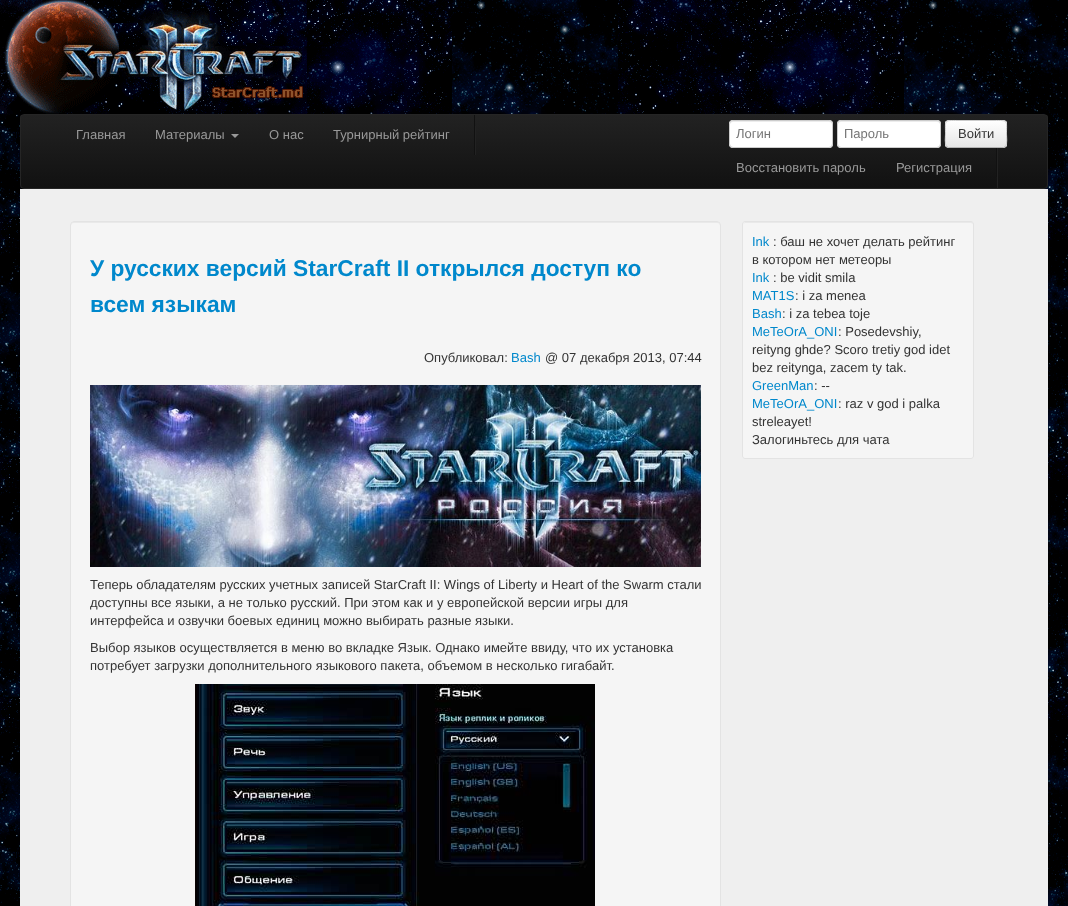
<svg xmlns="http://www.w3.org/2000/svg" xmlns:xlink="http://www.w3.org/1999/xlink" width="1068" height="906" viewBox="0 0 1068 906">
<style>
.cls-1{font:13px Liberation Sans;fill:#999999}
.cls-2{font:13px Liberation Sans;fill:#757575}
.cls-3{font:13px Liberation Sans;fill:#333333}
.cls-4{font:bold 22.75px Liberation Sans;fill:#0088cc}
.cls-5{font:13px Liberation Sans;fill:#0088cc}
</style>
<defs>
<clipPath id="clip1"><rect x="20" y="114" width="1028" height="75" rx="4"/></clipPath>
<linearGradient id="g1" gradientUnits="userSpaceOnUse" x1="534" y1="115" x2="534" y2="188"><stop offset="0" stop-color="#222222"/><stop offset="1" stop-color="#111111"/></linearGradient>
<clipPath id="clip2"><rect x="945" y="120" width="62" height="28" rx="4"/></clipPath>
<linearGradient id="g2" gradientUnits="userSpaceOnUse" x1="976" y1="121" x2="976" y2="147"><stop offset="0" stop-color="#ffffff"/><stop offset="1" stop-color="#e6e6e6"/></linearGradient>
</defs>
<rect width="100%" height="100%" fill="#ffffff"/>
<image xlink:href="image0.png" x="0" y="0" width="1068" height="906"/>
<rect fill="#000000" fill-opacity="0.07" filter="blur(2px)" x="20" y="115" width="1028" height="75" rx="4"/>
<image xlink:href="image1.png" x="0" y="0" width="307" height="114"/>
<g clip-path="url(#clip1)">
<rect fill="url(#g1)" x="20" y="115" width="1028" height="73"/>
</g>
<rect fill="none" stroke="#252525" x="20.5" y="114.5" width="1027" height="74" rx="3.5"/>
<path fill="#999999" d="M231 134H239L235 138Z"/>
<rect fill="#222222" x="475" y="126" width="1" height="29"/>
<rect fill="#111111" x="474" y="115" width="1" height="40"/>
<rect fill="#ffffff" x="729" y="120" width="104" height="28" rx="4"/>
<path fill="#ececec" d="M733 122H829C831 122 832 123 832 125C832 117 816 121 813 121H749C746 121 730 117 730 125C730 123 731 122 733 122Z"/>
<rect fill="none" stroke="#cccccc" x="729.5" y="120.5" width="103" height="27" rx="3.5"/>
<rect fill="#ffffff" x="837" y="120" width="104" height="28" rx="4"/>
<path fill="#ececec" d="M841 122H937C939 122 940 123 940 125C940 117 924 121 921 121H857C854 121 838 117 838 125C838 123 839 122 841 122Z"/>
<rect fill="none" stroke="#cccccc" x="837.5" y="120.5" width="103" height="27" rx="3.5"/>
<rect fill="#f5f5f5" x="945" y="120" width="62" height="28" rx="4"/>
<g clip-path="url(#clip2)">
<rect fill="url(#g2)" x="945" y="121" width="62" height="26"/>
</g>
<path fill="#ffffff" d="M949 122H1003C1005 122 1006 123 1006 125C1006 119 998 121 994 121H958C954 121 946 119 946 125C946 123 947 122 949 122Z"/>
<path fill="none" stroke="#b3b3b3" d="M1005.5 146.5L1003.5 147.5H948.5L946.5 146.5"/>
<path fill="none" stroke="#cccccc" d="M946.5 146.5C944.5 144 945.5 136.5 945.5 134C945.5 119.5 943.5 120.5 958 120.5H994C1008.5 120.5 1006.5 119.5 1006.5 134C1006.5 136.5 1007.5 144 1005.5 146.5"/>
<rect fill="#222222" x="997" y="148" width="1" height="40"/>
<rect fill="#111111" x="996" y="148" width="1" height="29"/>
<rect fill="#efefef" x="20" y="189" width="1028" height="717"/>
<rect fill="#f5f5f5" x="70" y="221" width="651" height="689" rx="4"/>
<path fill="#e9e9e9" d="M74 223H717C719 223 720 224 720 226V225C720 223 719 222 717 222H74C72 222 71 223 71 225V226C71 224 72 223 74 223Z"/>
<rect fill="none" stroke="#e3e3e3" x="70.5" y="221.5" width="650" height="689" rx="3.5"/>
<image xlink:href="image2.png" x="90" y="385" width="611" height="182"/>
<image xlink:href="image3.png" x="195" y="684" width="400" height="222"/>
<rect fill="#f5f5f5" x="742" y="221" width="232" height="238" rx="3"/>
<path fill="#e9e9e9" d="M745 223H971C972 223 973 224 973 225C973 224 973 222 971 222H745L744 223L743 225C743 224 744 223 745 223Z"/>
<rect fill="none" stroke="#e3e3e3" x="742.5" y="221.5" width="231" height="237" rx="2.5"/>
<text class="cls-1" x="76" y="139">Главная</text>
<text class="cls-1" x="155" y="139">Материалы</text>
<text class="cls-1" x="269" y="139">О нас</text>
<text class="cls-1" x="333" y="139">Турнирный рейтинг</text>
<text class="cls-2" x="736" y="138">Логин</text>
<text class="cls-2" x="844" y="138">Пароль</text>
<text class="cls-3" x="958" y="138">Войти</text>
<text class="cls-1" x="736" y="172">Восстановить пароль</text>
<text class="cls-1" x="896" y="172">Регистрация</text>
<text class="cls-4"><tspan x="90" y="276">У русских версий StarCraft II открылся доступ ко</tspan><tspan x="90" y="312">всем языкам</tspan></text>
<text class="cls-3" x="424" y="362">Опубликовал:</text>
<text class="cls-5" x="511" y="362">Bash</text>
<text class="cls-3" x="545" y="362">@ 07 декабря 2013, 07:44</text>
<text class="cls-3"><tspan x="90" y="589">Теперь обладателям русских учетных записей StarCraft II: Wings of Liberty и Heart of the Swarm стали</tspan><tspan x="90" y="607">доступны все языки, а не только русский. При этом как и у европейской версии игры для</tspan><tspan x="90" y="625">интерфейса и озвучки боевых единиц можно выбирать разные языки.</tspan></text>
<text class="cls-3"><tspan x="90" y="652">Выбор языков осуществляется в меню во вкладке Язык. Однако имейте ввиду, что их установка</tspan><tspan x="90" y="670">потребует загрузки дополнительного языкового пакета, объемом в несколько гигабайт.</tspan></text>
<text class="cls-5" x="752" y="246">Ink</text>
<text class="cls-3" x="773" y="246">: баш не хочет делать рейтинг</text>
<text class="cls-3" x="752" y="264">в котором нет метеоры</text>
<text class="cls-5" x="752" y="282">Ink</text>
<text class="cls-3" x="773" y="282">: be vidit smila</text>
<text class="cls-5" x="752" y="300">MAT1S</text>
<text class="cls-3" x="795" y="300">: i za menea</text>
<text class="cls-5" x="752" y="318">Bash</text>
<text class="cls-3" x="782" y="318">: i za tebea toje</text>
<text class="cls-5" x="752" y="336">MeTeOrA_ONI</text>
<text class="cls-3" x="838" y="336">: Posedevshiy,</text>
<text class="cls-3"><tspan x="752" y="354">reityng ghde? Scoro tretiy god idet</tspan><tspan x="752" y="372">bez reitynga, zacem ty tak.</tspan></text>
<text class="cls-5" x="752" y="390">GreenMan</text>
<text class="cls-3" x="814" y="390">: --</text>
<text class="cls-5" x="752" y="408">MeTeOrA_ONI</text>
<text class="cls-3" x="838" y="408">: raz v god i palka</text>
<text class="cls-3"><tspan x="752" y="426">streleayet!</tspan><tspan x="752" y="444">Залогиньтесь для чата</tspan></text>
</svg>
